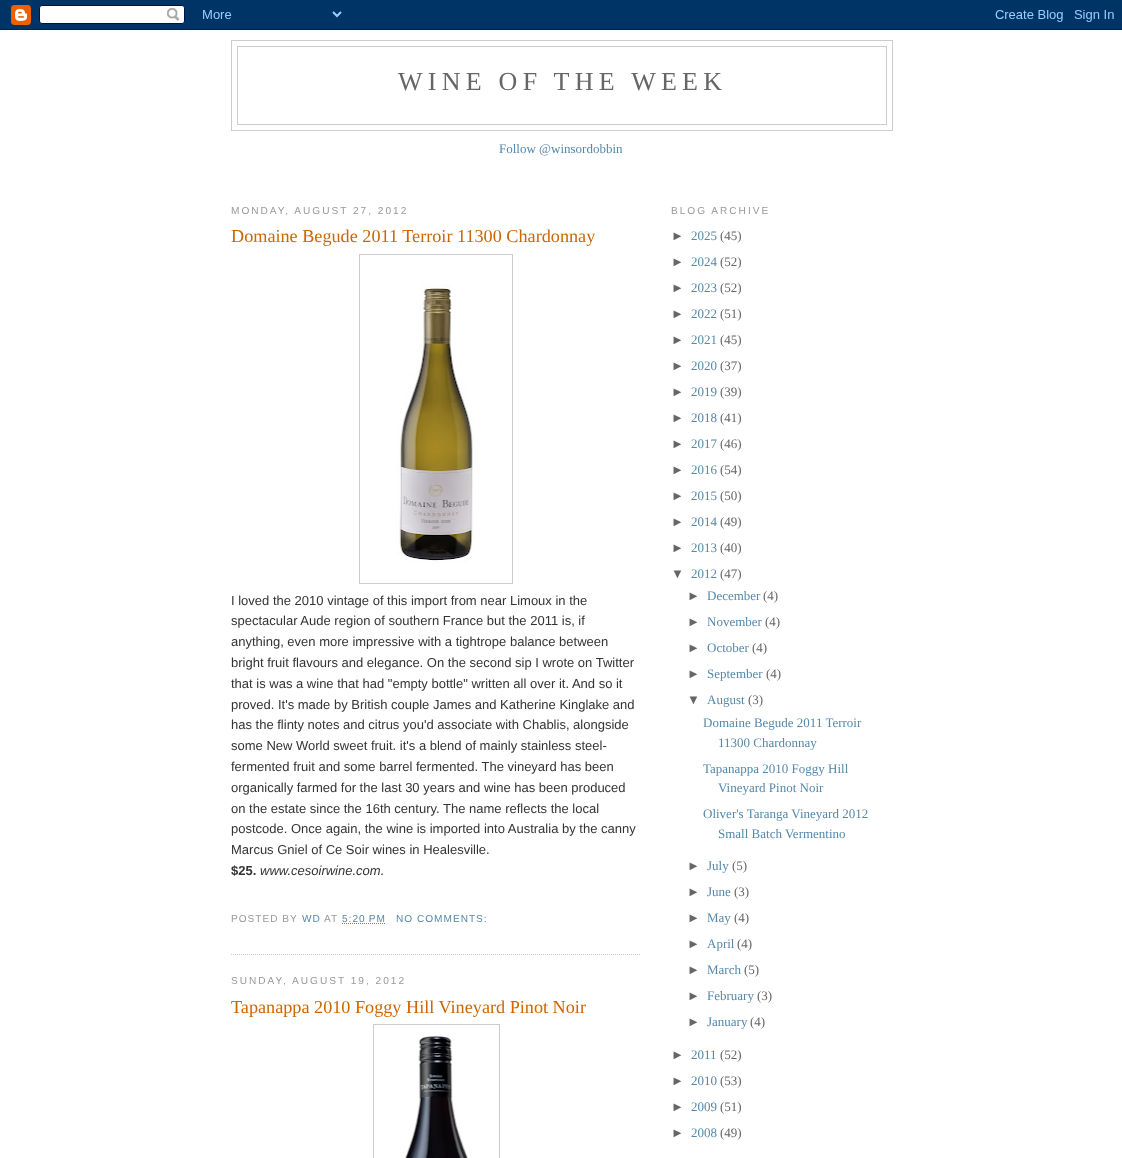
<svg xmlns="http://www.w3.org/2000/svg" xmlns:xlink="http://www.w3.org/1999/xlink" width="1122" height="1158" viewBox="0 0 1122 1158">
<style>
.cls-1{font:26px Liberation Serif;letter-spacing:5.25px;fill:#666666}
.cls-2{font:13px Liberation Serif;fill:#5588aa}
.cls-3{font:10.1px Liberation Sans;letter-spacing:2px;fill:#999999}
.cls-4{font:18.2px Liberation Serif;fill:#cc6600}
.cls-5{font:13px Liberation Sans;fill:#333333}
.cls-6{font:bold 13px Liberation Sans;fill:#333333}
.cls-7{font:italic 13px Liberation Sans;fill:#333333}
.cls-8{font:10.1px Liberation Sans;letter-spacing:1px;fill:#999999}
.cls-9{font:10.1px Liberation Sans;letter-spacing:1px;fill:#5588aa}
.cls-10{font:13px Liberation Sans;fill:#666666}
.cls-11{font:13px Liberation Serif;fill:#666666}
</style>
<rect width="100%" height="100%" fill="#ffffff"/>
<image xlink:href="image0.png" x="0" y="0" width="1122" height="30"/>
<rect fill="none" stroke="#cccccc" x="231.5" y="40.5" width="661" height="90"/>
<rect fill="none" stroke="#cccccc" x="237.5" y="46.5" width="649" height="78"/>
<path fill="none" stroke="#cccccc" stroke-dasharray="1 1" d="M231 954.5H641"/>
<rect fill="none" stroke="#cccccc" x="359.5" y="254.5" width="153" height="329"/>
<image xlink:href="image1.png" x="396" y="283" width="79" height="280"/>
<path fill="none" stroke="#5588aa" stroke-dasharray="1 1" d="M342 923.5H386"/>
<rect fill="none" stroke="#cccccc" x="373.5" y="1024.5" width="126" height="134"/>
<image xlink:href="image2.png" x="405" y="1036" width="64" height="122"/>
<text class="cls-1" x="398" y="90">WINE OF THE WEEK</text>
<text class="cls-2" x="499" y="153">Follow @winsordobbin</text>
<text class="cls-3" x="231" y="214">MONDAY, AUGUST 27, 2012</text>
<text class="cls-4" x="231" y="242">Domaine Begude 2011 Terroir 11300 Chardonnay</text>
<text class="cls-5"><tspan x="231" y="605">I loved the 2010 vintage of this import from near Limoux in the</tspan><tspan x="231" y="625">spectacular Aude region of southern France but the 2011 is, if</tspan><tspan x="231" y="646">anything, even more impressive with a tightrope balance between</tspan><tspan x="231" y="667">bright fruit flavours and elegance. On the second sip I wrote on Twitter</tspan><tspan x="231" y="688">that is was a wine that had "empty bottle" written all over it. And so it</tspan><tspan x="231" y="709">proved. It's made by British couple James and Katherine Kinglake and</tspan><tspan x="231" y="729">has the flinty notes and citrus you'd associate with Chablis, alongside</tspan><tspan x="231" y="750">some New World sweet fruit. it's a blend of mainly stainless steel-</tspan><tspan x="231" y="771">fermented fruit and some barrel fermented. The vineyard has been</tspan><tspan x="231" y="792">organically farmed for the last 30 years and wine has been produced</tspan><tspan x="231" y="813">on the estate since the 16th century. The name reflects the local</tspan><tspan x="231" y="833">postcode. Once again, the wine is imported into Australia by the canny</tspan><tspan x="231" y="854">Marcus Gniel of Ce Soir wines in Healesville.</tspan></text>
<text class="cls-6" x="231" y="875">$25.</text>
<text class="cls-7" x="260" y="875">www.cesoirwine.com.</text>
<text class="cls-8" x="231" y="922">POSTED BY</text>
<text class="cls-9" x="302" y="922">WD</text>
<text class="cls-8" x="324" y="922">AT</text>
<text class="cls-9" x="342" y="922">5:20 PM</text>
<text class="cls-9" x="396" y="922">NO COMMENTS:</text>
<text class="cls-3" x="231" y="984">SUNDAY, AUGUST 19, 2012</text>
<text class="cls-4" x="231" y="1013">Tapanappa 2010 Foggy Hill Vineyard Pinot Noir</text>
<text class="cls-3" x="671" y="214">BLOG ARCHIVE</text>
<text class="cls-10" x="671" y="240">►</text>
<text class="cls-2" x="691" y="240">2025</text>
<text class="cls-11" x="720" y="240">(45)</text>
<text class="cls-10" x="671" y="266">►</text>
<text class="cls-2" x="691" y="266">2024</text>
<text class="cls-11" x="720" y="266">(52)</text>
<text class="cls-10" x="671" y="292">►</text>
<text class="cls-2" x="691" y="292">2023</text>
<text class="cls-11" x="720" y="292">(52)</text>
<text class="cls-10" x="671" y="318">►</text>
<text class="cls-2" x="691" y="318">2022</text>
<text class="cls-11" x="720" y="318">(51)</text>
<text class="cls-10" x="671" y="344">►</text>
<text class="cls-2" x="691" y="344">2021</text>
<text class="cls-11" x="720" y="344">(45)</text>
<text class="cls-10" x="671" y="370">►</text>
<text class="cls-2" x="691" y="370">2020</text>
<text class="cls-11" x="720" y="370">(37)</text>
<text class="cls-10" x="671" y="396">►</text>
<text class="cls-2" x="691" y="396">2019</text>
<text class="cls-11" x="720" y="396">(39)</text>
<text class="cls-10" x="671" y="422">►</text>
<text class="cls-2" x="691" y="422">2018</text>
<text class="cls-11" x="720" y="422">(41)</text>
<text class="cls-10" x="671" y="448">►</text>
<text class="cls-2" x="691" y="448">2017</text>
<text class="cls-11" x="720" y="448">(46)</text>
<text class="cls-10" x="671" y="474">►</text>
<text class="cls-2" x="691" y="474">2016</text>
<text class="cls-11" x="720" y="474">(54)</text>
<text class="cls-10" x="671" y="500">►</text>
<text class="cls-2" x="691" y="500">2015</text>
<text class="cls-11" x="720" y="500">(50)</text>
<text class="cls-10" x="671" y="526">►</text>
<text class="cls-2" x="691" y="526">2014</text>
<text class="cls-11" x="720" y="526">(49)</text>
<text class="cls-10" x="671" y="552">►</text>
<text class="cls-2" x="691" y="552">2013</text>
<text class="cls-11" x="720" y="552">(40)</text>
<text class="cls-10" x="671" y="578">▼</text>
<text class="cls-2" x="691" y="578">2012</text>
<text class="cls-11" x="720" y="578">(47)</text>
<text class="cls-10" x="687" y="600">►</text>
<text class="cls-2" x="707" y="600">December</text>
<text class="cls-11" x="763" y="600">(4)</text>
<text class="cls-10" x="687" y="626">►</text>
<text class="cls-2" x="707" y="626">November</text>
<text class="cls-11" x="765" y="626">(4)</text>
<text class="cls-10" x="687" y="652">►</text>
<text class="cls-2" x="707" y="652">October</text>
<text class="cls-11" x="752" y="652">(4)</text>
<text class="cls-10" x="687" y="678">►</text>
<text class="cls-2" x="707" y="678">September</text>
<text class="cls-11" x="766" y="678">(4)</text>
<text class="cls-10" x="687" y="704">▼</text>
<text class="cls-2" x="707" y="704">August</text>
<text class="cls-11" x="748" y="704">(3)</text>
<text class="cls-2" x="703" y="727">Domaine Begude 2011 Terroir</text>
<text class="cls-2" x="718" y="747">11300 Chardonnay</text>
<text class="cls-2" x="703" y="773">Tapanappa 2010 Foggy Hill</text>
<text class="cls-2" x="718" y="792">Vineyard Pinot Noir</text>
<text class="cls-2" x="703" y="818">Oliver's Taranga Vineyard 2012</text>
<text class="cls-2" x="718" y="838">Small Batch Vermentino</text>
<text class="cls-10" x="687" y="870">►</text>
<text class="cls-2" x="707" y="870">July</text>
<text class="cls-11" x="732" y="870">(5)</text>
<text class="cls-10" x="687" y="896">►</text>
<text class="cls-2" x="707" y="896">June</text>
<text class="cls-11" x="734" y="896">(3)</text>
<text class="cls-10" x="687" y="922">►</text>
<text class="cls-2" x="707" y="922">May</text>
<text class="cls-11" x="734" y="922">(4)</text>
<text class="cls-10" x="687" y="948">►</text>
<text class="cls-2" x="707" y="948">April</text>
<text class="cls-11" x="737" y="948">(4)</text>
<text class="cls-10" x="687" y="974">►</text>
<text class="cls-2" x="707" y="974">March</text>
<text class="cls-11" x="744" y="974">(5)</text>
<text class="cls-10" x="687" y="1000">►</text>
<text class="cls-2" x="707" y="1000">February</text>
<text class="cls-11" x="757" y="1000">(3)</text>
<text class="cls-10" x="687" y="1026">►</text>
<text class="cls-2" x="707" y="1026">January</text>
<text class="cls-11" x="750" y="1026">(4)</text>
<text class="cls-10" x="671" y="1059">►</text>
<text class="cls-2" x="691" y="1059">2011</text>
<text class="cls-11" x="720" y="1059">(52)</text>
<text class="cls-10" x="671" y="1085">►</text>
<text class="cls-2" x="691" y="1085">2010</text>
<text class="cls-11" x="720" y="1085">(53)</text>
<text class="cls-10" x="671" y="1111">►</text>
<text class="cls-2" x="691" y="1111">2009</text>
<text class="cls-11" x="720" y="1111">(51)</text>
<text class="cls-10" x="671" y="1137">►</text>
<text class="cls-2" x="691" y="1137">2008</text>
<text class="cls-11" x="720" y="1137">(49)</text>
</svg>
